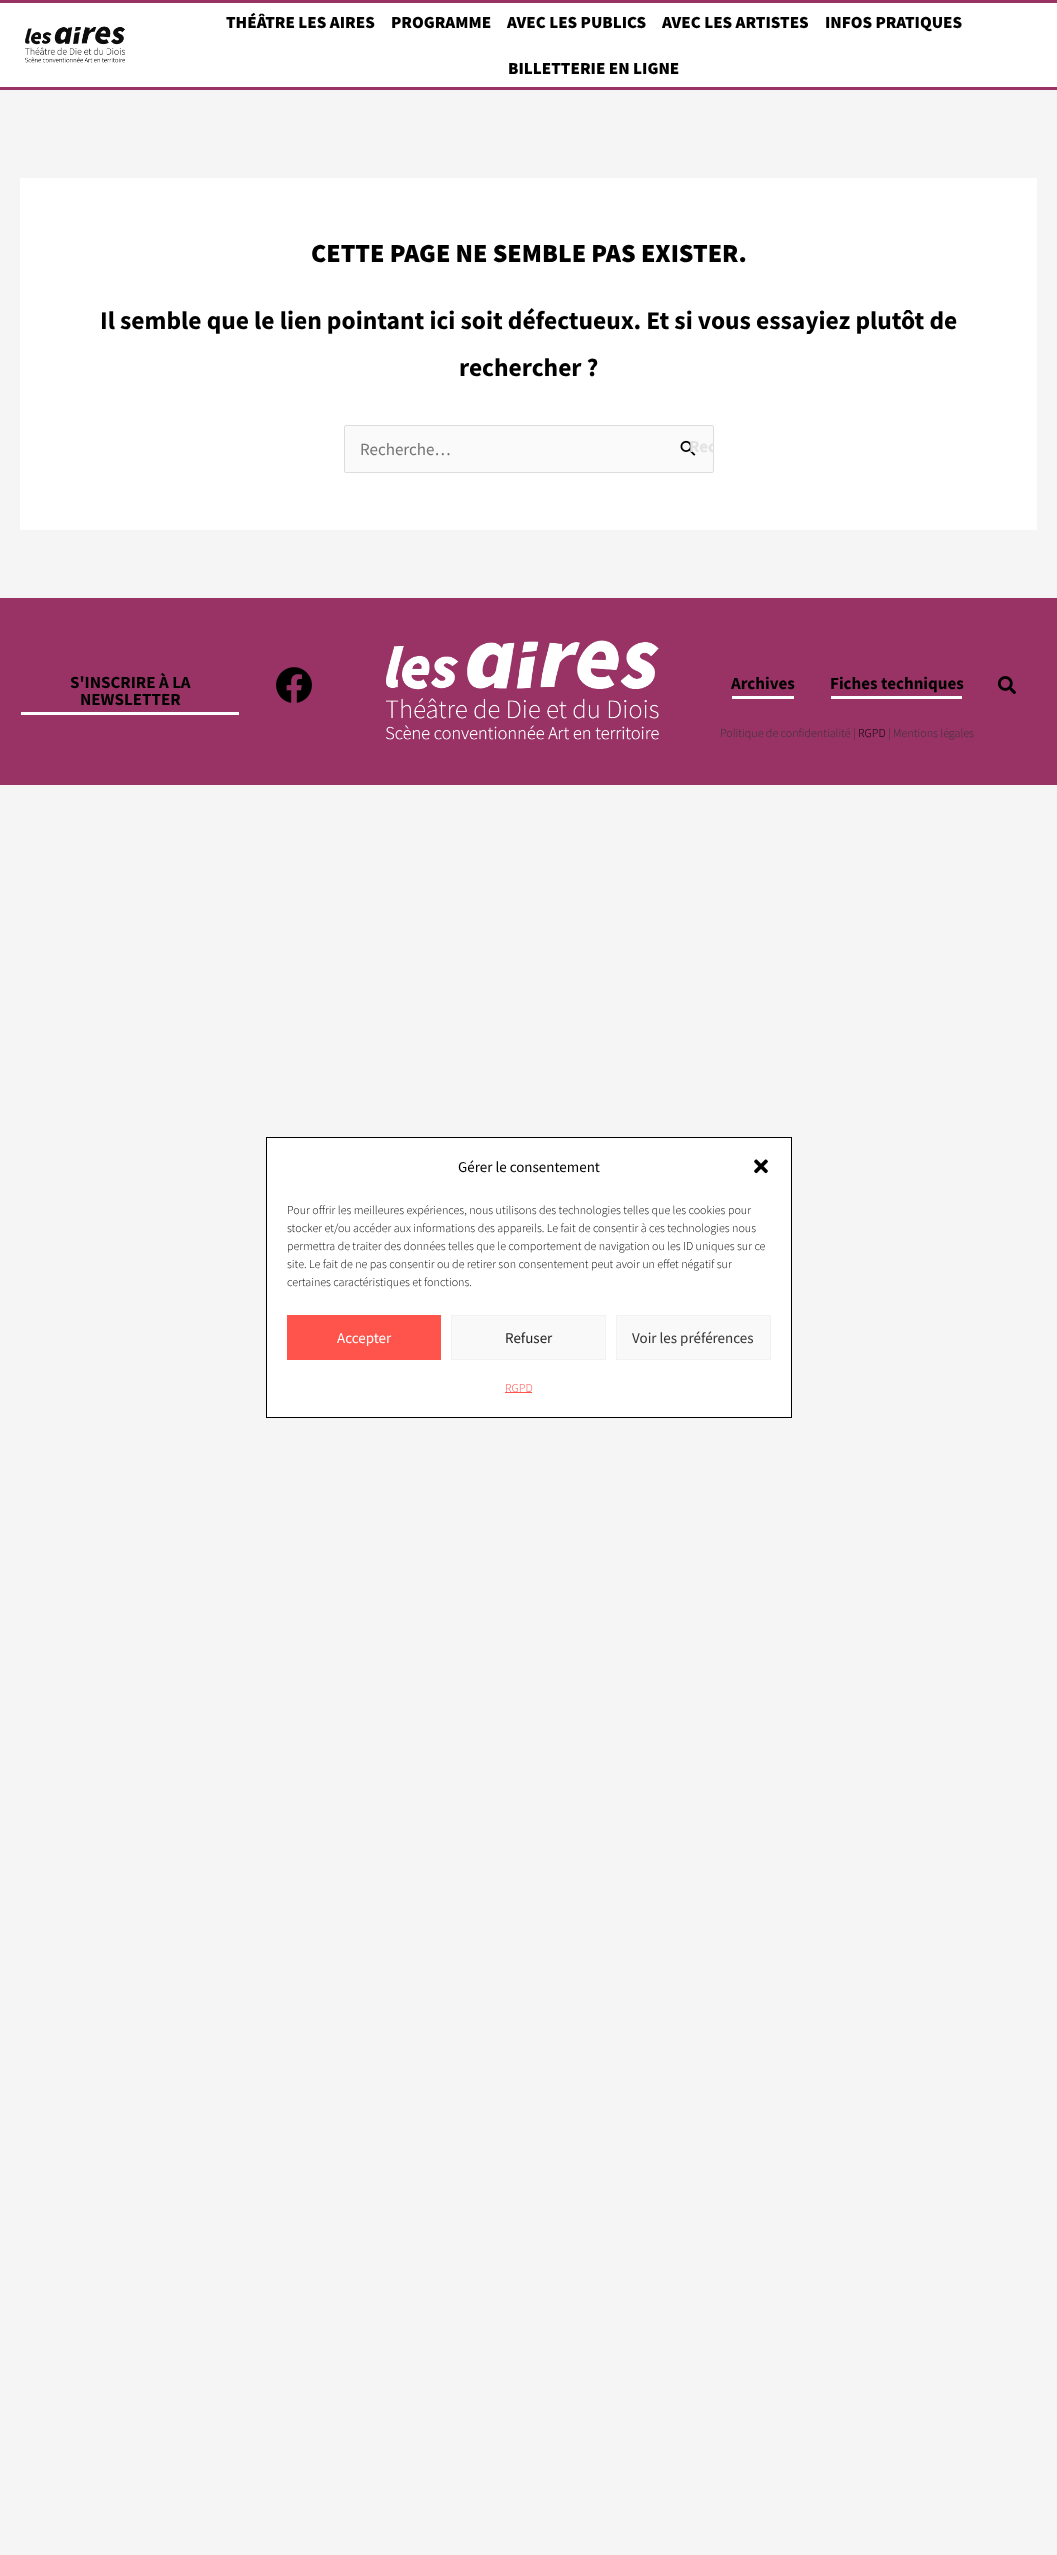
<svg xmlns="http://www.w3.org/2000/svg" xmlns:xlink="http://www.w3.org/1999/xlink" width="1057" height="2555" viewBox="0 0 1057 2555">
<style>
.cls-1{font:900 17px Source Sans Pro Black;fill:#000000}
.cls-2{font:900 26px Source Sans Pro Black;fill:#000000}
.cls-3{font:bold 25.5px Source Sans Pro;fill:#000000}
.cls-4{font:17px Source Sans Pro;fill:#757575}
.cls-5{font:bold 17px Source Sans Pro;fill:#e3e3e3}
.cls-6{font:bold 17px Source Sans Pro;fill:#000000}
.cls-7{font:300 12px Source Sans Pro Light;fill:#333333}
.cls-8{font:300 12px Source Sans Pro Light;fill:#000000}
.cls-9{font:15px Source Sans Pro;fill:#000000}
.cls-10{font:15px Source Sans Pro;fill:#ffffff}
.cls-11{font:15px Source Sans Pro;fill:#222222}
.cls-12{font:15px Source Sans Pro;fill:#333333}
.cls-13{font:300 12px Source Sans Pro Light;fill:#ff544c}
</style>
<defs>
<clipPath id="clip1"><rect x="669" y="425" width="45" height="43" rx="2"/></clipPath>
</defs>
<rect width="100%" height="100%" fill="#f5f5f5"/>
<rect fill="#ffffff" x="0" y="3" width="1057" height="84"/>
<rect fill="#993366" x="0" y="0" width="1057" height="3"/>
<rect fill="#993366" x="0" y="87" width="1057" height="3"/>
<image xlink:href="image0.png" x="25" y="26" width="100" height="37"/>
<rect fill="#ffffff" x="20" y="178" width="1017" height="352"/>
<rect fill="#fafafa" stroke="#dddddd" x="344.5" y="425.5" width="369" height="47" rx="1.5"/>
<image xlink:href="image1.png" x="680" y="440" width="16" height="16"/>
<rect fill="#993366" x="0" y="598" width="1057" height="187"/>
<rect fill="#ffffff" x="21" y="712" width="218" height="3"/>
<image xlink:href="image2.png" x="276" y="667" width="36" height="36"/>
<image xlink:href="image3.png" x="385" y="640" width="274" height="100"/>
<rect fill="#ffffff" x="732" y="696" width="62" height="3"/>
<rect fill="#ffffff" x="831" y="696" width="131" height="3"/>
<image xlink:href="image4.png" x="997" y="676" width="19" height="19"/>
<rect fill="#ffffff" stroke="#000000" x="266.5" y="1137.5" width="525" height="280"/>
<image xlink:href="image5.png" x="754" y="1159" width="14" height="15"/>
<rect fill="#ff544c" x="287" y="1315" width="154" height="45"/>
<rect fill="#f9f9f9" stroke="#f2f2f2" x="451.5" y="1315.5" width="154" height="44"/>
<rect fill="#f9f9f9" stroke="#f2f2f2" x="616.5" y="1315.5" width="154" height="44"/>
<rect fill="#ff544c" x="505" y="1392" width="27" height="1"/>
<text class="cls-1" x="226" y="28">THÉÂTRE LES AIRES</text>
<text class="cls-1" x="391" y="28">PROGRAMME</text>
<text class="cls-1" x="507" y="28">AVEC LES PUBLICS</text>
<text class="cls-1" x="662" y="28">AVEC LES ARTISTES</text>
<text class="cls-1" x="825" y="28">INFOS PRATIQUES</text>
<text class="cls-1" x="508" y="74">BILLETTERIE EN LIGNE</text>
<text class="cls-2" x="311" y="262">CETTE PAGE NE SEMBLE PAS EXISTER.</text>
<text class="cls-3" x="100" y="329">Il semble que le lien pointant ici soit défectueux. Et si vous essayiez plutôt de</text>
<text class="cls-3" x="459" y="376">rechercher ?</text>
<text class="cls-4" x="360" y="455">Recherche…</text>
<g clip-path="url(#clip1)">
<text class="cls-5" x="689" y="452">Rec</text>
</g>
<text class="cls-6" x="70" y="688">S'INSCRIRE À LA</text>
<text class="cls-6" x="80" y="705">NEWSLETTER</text>
<text class="cls-6" x="731" y="689">Archives</text>
<text class="cls-6" x="830" y="689">Fiches techniques</text>
<text class="cls-7" x="720" y="737">Politique de confidentialité |</text>
<text class="cls-8" x="858" y="737">RGPD</text>
<text class="cls-7" x="888" y="737">| Mentions légales</text>
<text class="cls-9" x="458" y="1172">Gérer le consentement</text>
<text class="cls-8"><tspan x="287" y="1214">Pour offrir les meilleures expériences, nous utilisons des technologies telles que les cookies pour</tspan><tspan x="287" y="1232">stocker et/ou accéder aux informations des appareils. Le fait de consentir à ces technologies nous</tspan><tspan x="287" y="1250">permettra de traiter des données telles que le comportement de navigation ou les ID uniques sur ce</tspan><tspan x="287" y="1268">site. Le fait de ne pas consentir ou de retirer son consentement peut avoir un effet négatif sur</tspan><tspan x="287" y="1286">certaines caractéristiques et fonctions.</tspan></text>
<text class="cls-10" x="337" y="1343">Accepter</text>
<text class="cls-11" x="505" y="1343">Refuser</text>
<text class="cls-12" x="632" y="1343">Voir les préférences</text>
<text class="cls-13" x="505" y="1392">RGPD</text>
</svg>
